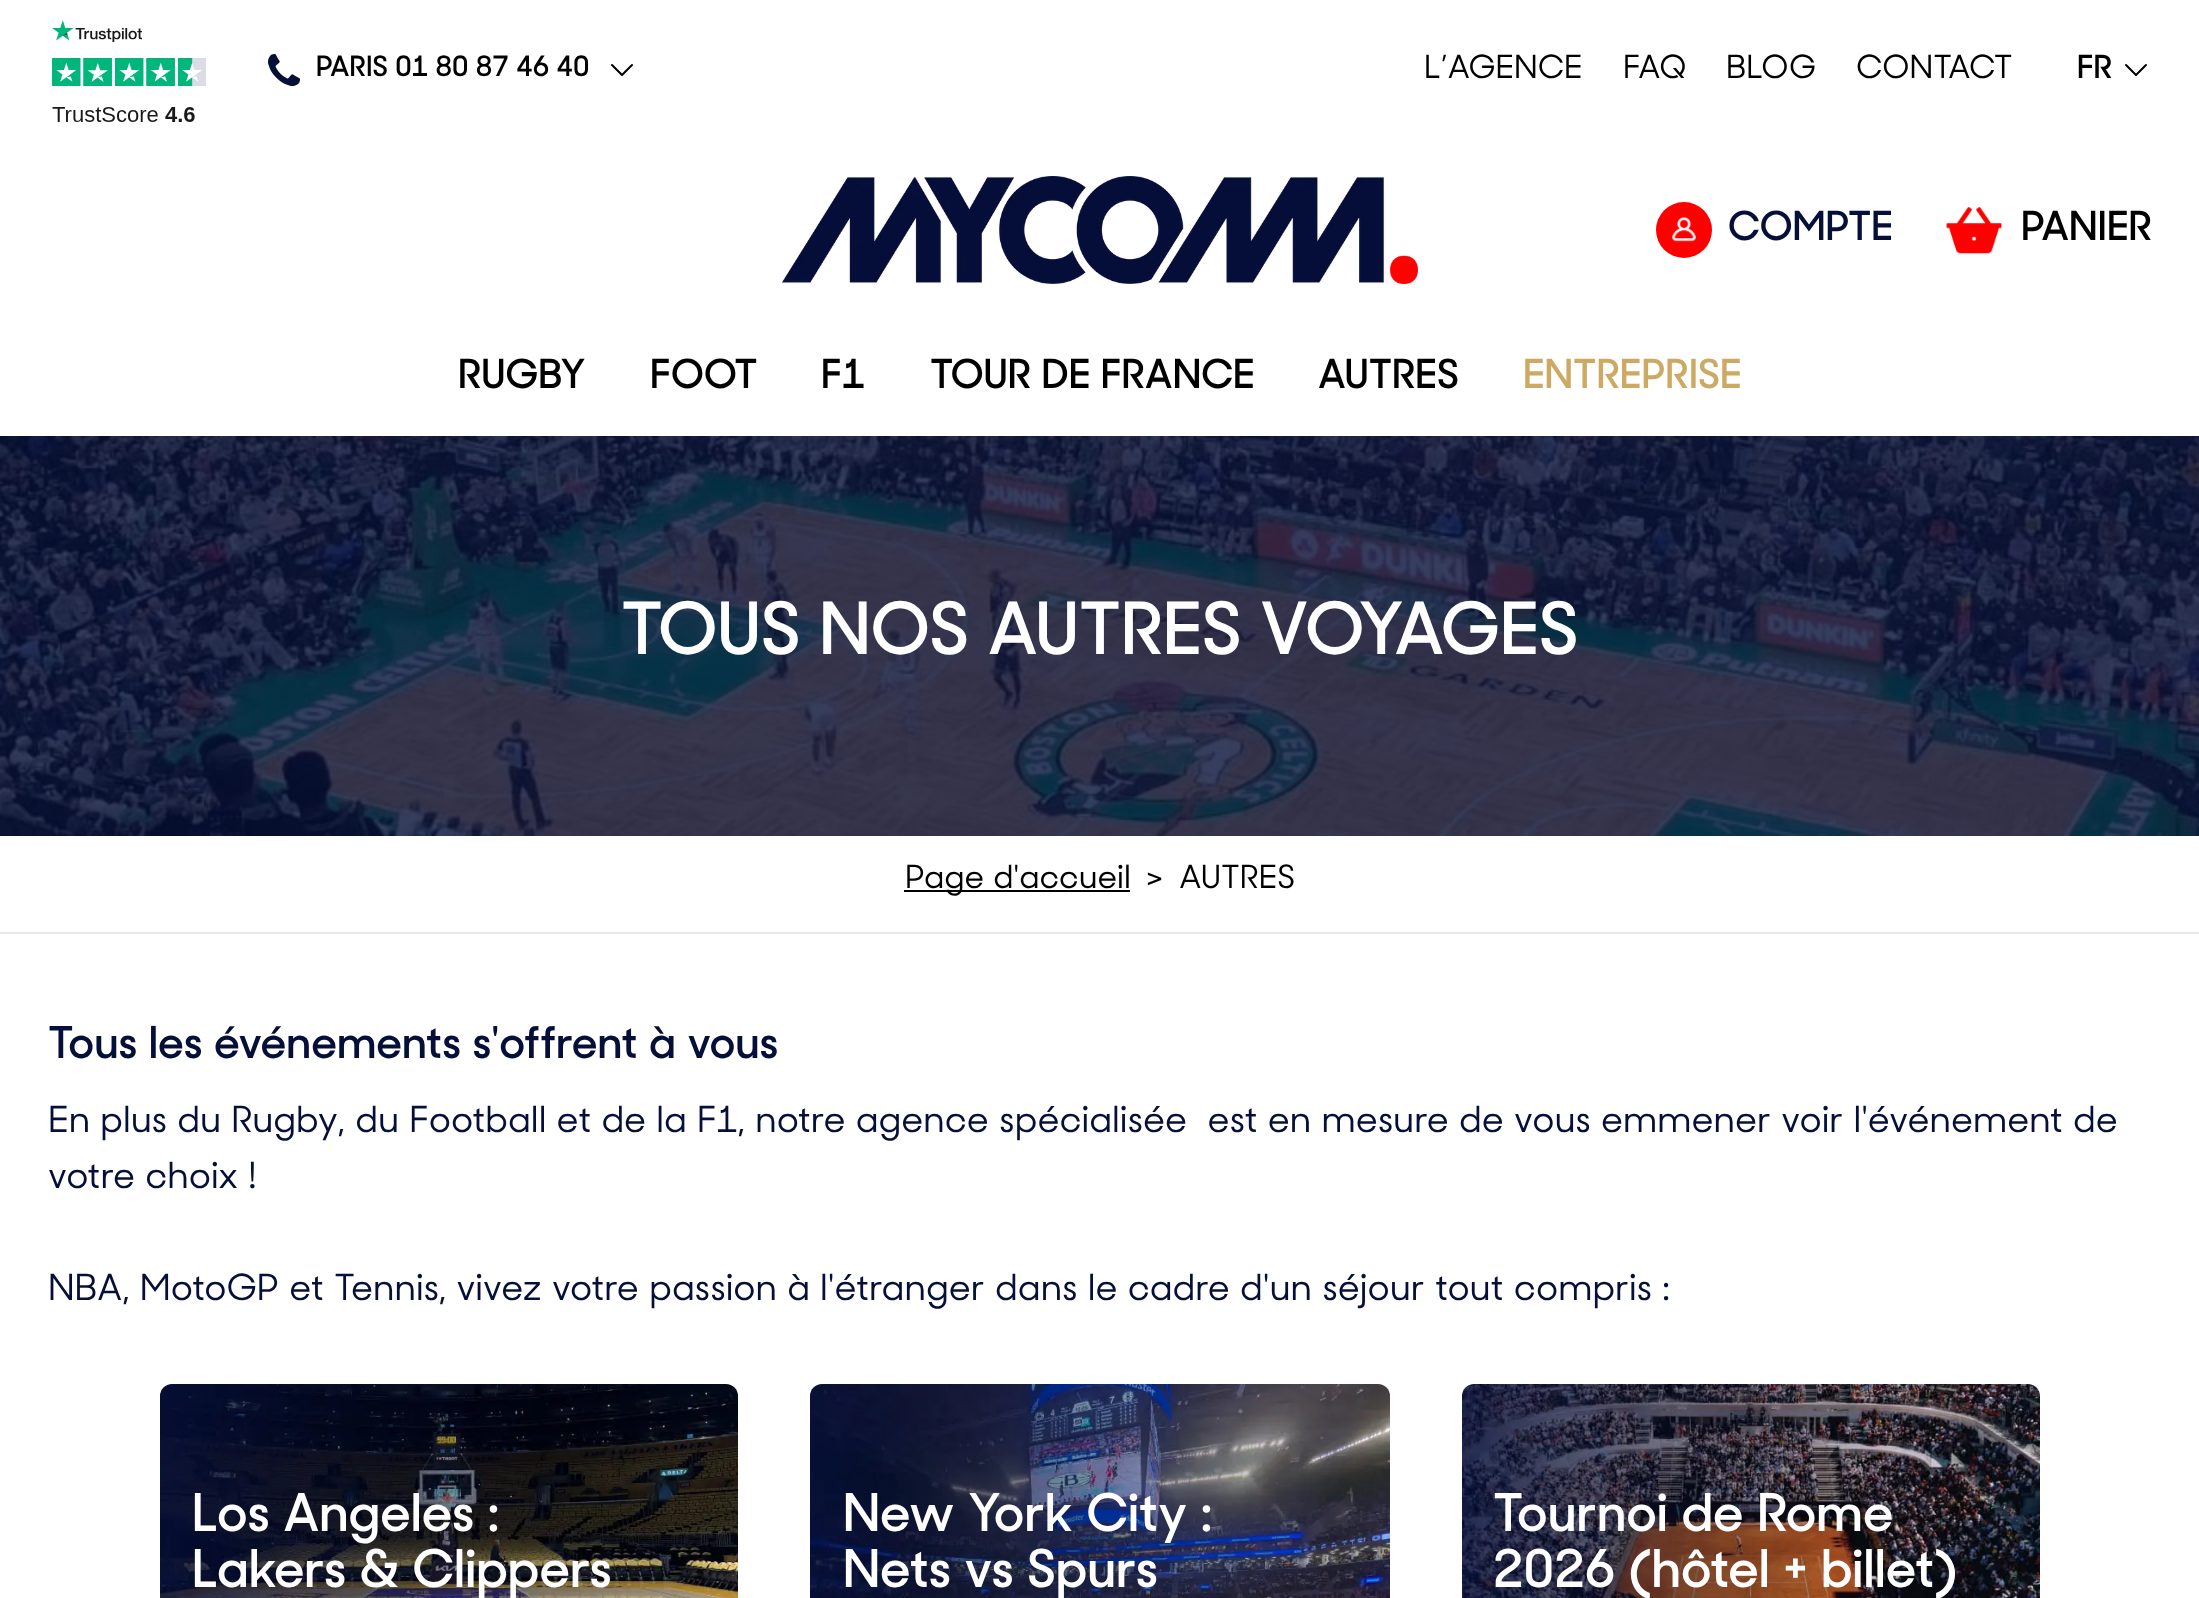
<svg xmlns="http://www.w3.org/2000/svg" xmlns:xlink="http://www.w3.org/1999/xlink" width="2199" height="1598" viewBox="0 0 2199 1598">
<style>
.cls-1{font:600 28px 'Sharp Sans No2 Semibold';fill:#000000}
.cls-2{font:500 32px 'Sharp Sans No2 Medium';fill:#000000}
.cls-3{font:600 32px 'Sharp Sans No2 Semibold';fill:#000000}
.cls-4{font:600 40px 'Sharp Sans No2 Semibold';fill:#050f38}
.cls-5{font:600 40px 'Sharp Sans No2 Semibold';fill:#000000}
.cls-6{font:600 40px 'Sharp Sans No2 Semibold';fill:#cdaa63}
.cls-7{font:600 72px 'Sharp Sans No2 Semibold';fill:#ffffff}
.cls-8{font:500 36px 'Sharp Sans No2 Medium';fill:#000000}
.cls-9{font:600 44px 'Sharp Sans No2 Semibold';fill:#050f38}
.cls-10{font:500 36px 'Sharp Sans No2 Medium';fill:#050f38}
.cls-11{font:600 52px 'Sharp Sans No2 Semibold';fill:#ffffff}
</style>
<rect width="100%" height="100%" fill="#ffffff"/>
<image xlink:href="image0.png" x="52" y="20" width="154" height="102"/>
<image xlink:href="image1.png" x="268" y="54" width="32" height="32"/>
<path fill="none" stroke="#000000" stroke-width="2" stroke-linecap="round" stroke-linejoin="round" d="M632 65L622 75L612 65"/>
<path fill="none" stroke="#000000" stroke-width="2" stroke-linecap="round" stroke-linejoin="round" d="M2146 65L2136 75L2126 65"/>
<image xlink:href="image2.png" x="782" y="176" width="636" height="108"/>
<circle fill="#ff0000" cx="1684" cy="230" r="28"/>
<image xlink:href="image3.png" x="1672" y="217" width="24" height="25"/>
<image xlink:href="image4.png" x="1946" y="207" width="56" height="47"/>
<image xlink:href="image5.png" x="0" y="436" width="2199" height="400"/>
<rect fill="#e5e7eb" x="0" y="932" width="2199" height="2"/>
<rect fill="#000000" x="904" y="890" width="226" height="2"/>
<image xlink:href="image6.png" x="160" y="1384" width="578" height="214"/>
<image xlink:href="image7.png" x="810" y="1384" width="580" height="214"/>
<image xlink:href="image8.png" x="1462" y="1384" width="578" height="214"/>
<text class="cls-1" x="316" y="76">PARIS 01 80 87 46 40</text>
<text class="cls-2" x="1424" y="78">L’AGENCE</text>
<text class="cls-2" x="1623" y="78">FAQ</text>
<text class="cls-2" x="1726" y="78">BLOG</text>
<text class="cls-2" x="1856" y="78">CONTACT</text>
<text class="cls-3" x="2077" y="78">FR</text>
<text class="cls-4" x="1728" y="240">COMPTE</text>
<text class="cls-5" x="2021" y="240">PANIER</text>
<text class="cls-5" x="458" y="388">RUGBY</text>
<text class="cls-5" x="650" y="388">FOOT</text>
<text class="cls-5" x="821" y="388">F1</text>
<text class="cls-5" x="930" y="388">TOUR DE FRANCE</text>
<text class="cls-5" x="1318" y="388">AUTRES</text>
<text class="cls-6" x="1523" y="388">ENTREPRISE</text>
<text class="cls-7" x="621" y="654">TOUS NOS AUTRES VOYAGES</text>
<text class="cls-2" x="905" y="888">Page d'accueil</text>
<text class="cls-8" x="1146" y="892">&gt;</text>
<text class="cls-2" x="1179" y="888">AUTRES</text>
<text class="cls-9" x="48" y="1058">Tous les événements s'offrent à vous</text>
<text class="cls-10" xml:space="preserve"><tspan x="48" y="1132">En plus du Rugby, du Football et de la F1, notre agence spécialisée  est en mesure de vous emmener voir l'événement de</tspan><tspan x="48" y="1188">votre choix !</tspan></text>
<text class="cls-10" x="48" y="1300">NBA, MotoGP et Tennis, vivez votre passion à l'étranger dans le cadre d'un séjour tout compris :</text>
<text class="cls-11"><tspan x="192" y="1531">Los Angeles :</tspan><tspan x="192" y="1587">Lakers &amp; Clippers</tspan></text>
<text class="cls-11"><tspan x="843" y="1531">New York City :</tspan><tspan x="843" y="1587">Nets vs Spurs</tspan></text>
<text class="cls-11"><tspan x="1493" y="1531">Tournoi de Rome</tspan><tspan x="1493" y="1587">2026 (hôtel + billet)</tspan></text>
</svg>
